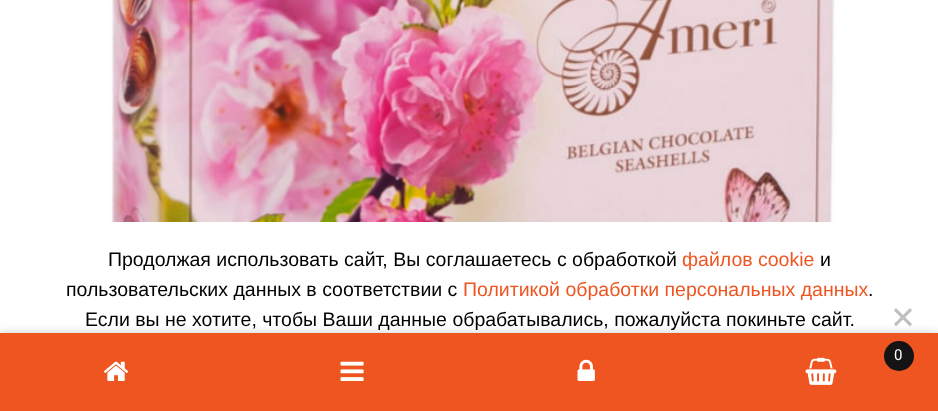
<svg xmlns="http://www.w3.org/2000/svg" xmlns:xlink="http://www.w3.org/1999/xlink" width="938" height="411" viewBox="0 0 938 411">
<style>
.cls-1{font:19.5px Liberation Sans;fill:#000000}
.cls-2{font:19.5px Liberation Sans;fill:#ef5521}
.cls-3{font:15px Roboto;letter-spacing:1px;fill:#ffffff}
</style>
<rect width="100%" height="100%" fill="#ffffff"/>
<image xlink:href="image0.png" x="0" y="0" width="938" height="222"/>
<rect fill="#ffffff" x="84" y="0" width="837" height="222"/>
<image xlink:href="image1.png" x="110" y="0" width="726" height="222"/>
<path fill="#c0c0c0" d="M910 308L912 310.5L896 326.5L894 324Z"/>
<path fill="#c0c0c0" d="M894 310.5L896 308L912 324L910 326.5Z"/>
<rect fill="#000000" fill-opacity="0.2" filter="blur(4px)" x="0" y="333" width="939" height="78"/>
<rect fill="#ef5521" x="0" y="333" width="938" height="78"/>
<circle fill="#141415" cx="899" cy="356" r="15"/>
<image xlink:href="image2.png" x="805" y="357" width="32" height="28"/>
<image xlink:href="image3.png" x="103" y="361" width="26" height="20"/>
<image xlink:href="image4.png" x="340" y="361" width="24" height="20"/>
<image xlink:href="image5.png" x="577" y="359" width="18" height="22"/>
<text class="cls-1" x="108" y="266">Продолжая использовать сайт, Вы соглашаетесь с обработкой</text>
<text class="cls-2" x="682" y="266">файлов cookie</text>
<text class="cls-1" x="820" y="266">и</text>
<text class="cls-1" x="66" y="296">пользовательских данных в соответствии с</text>
<text class="cls-2" x="463" y="296">Политикой обработки персональных данных</text>
<text class="cls-1" x="868" y="296">.</text>
<text class="cls-1" x="85" y="326">Если вы не хотите, чтобы Ваши данные обрабатывались, пожалуйста покиньте сайт.</text>
<text class="cls-3" x="894" y="360">0</text>
</svg>
